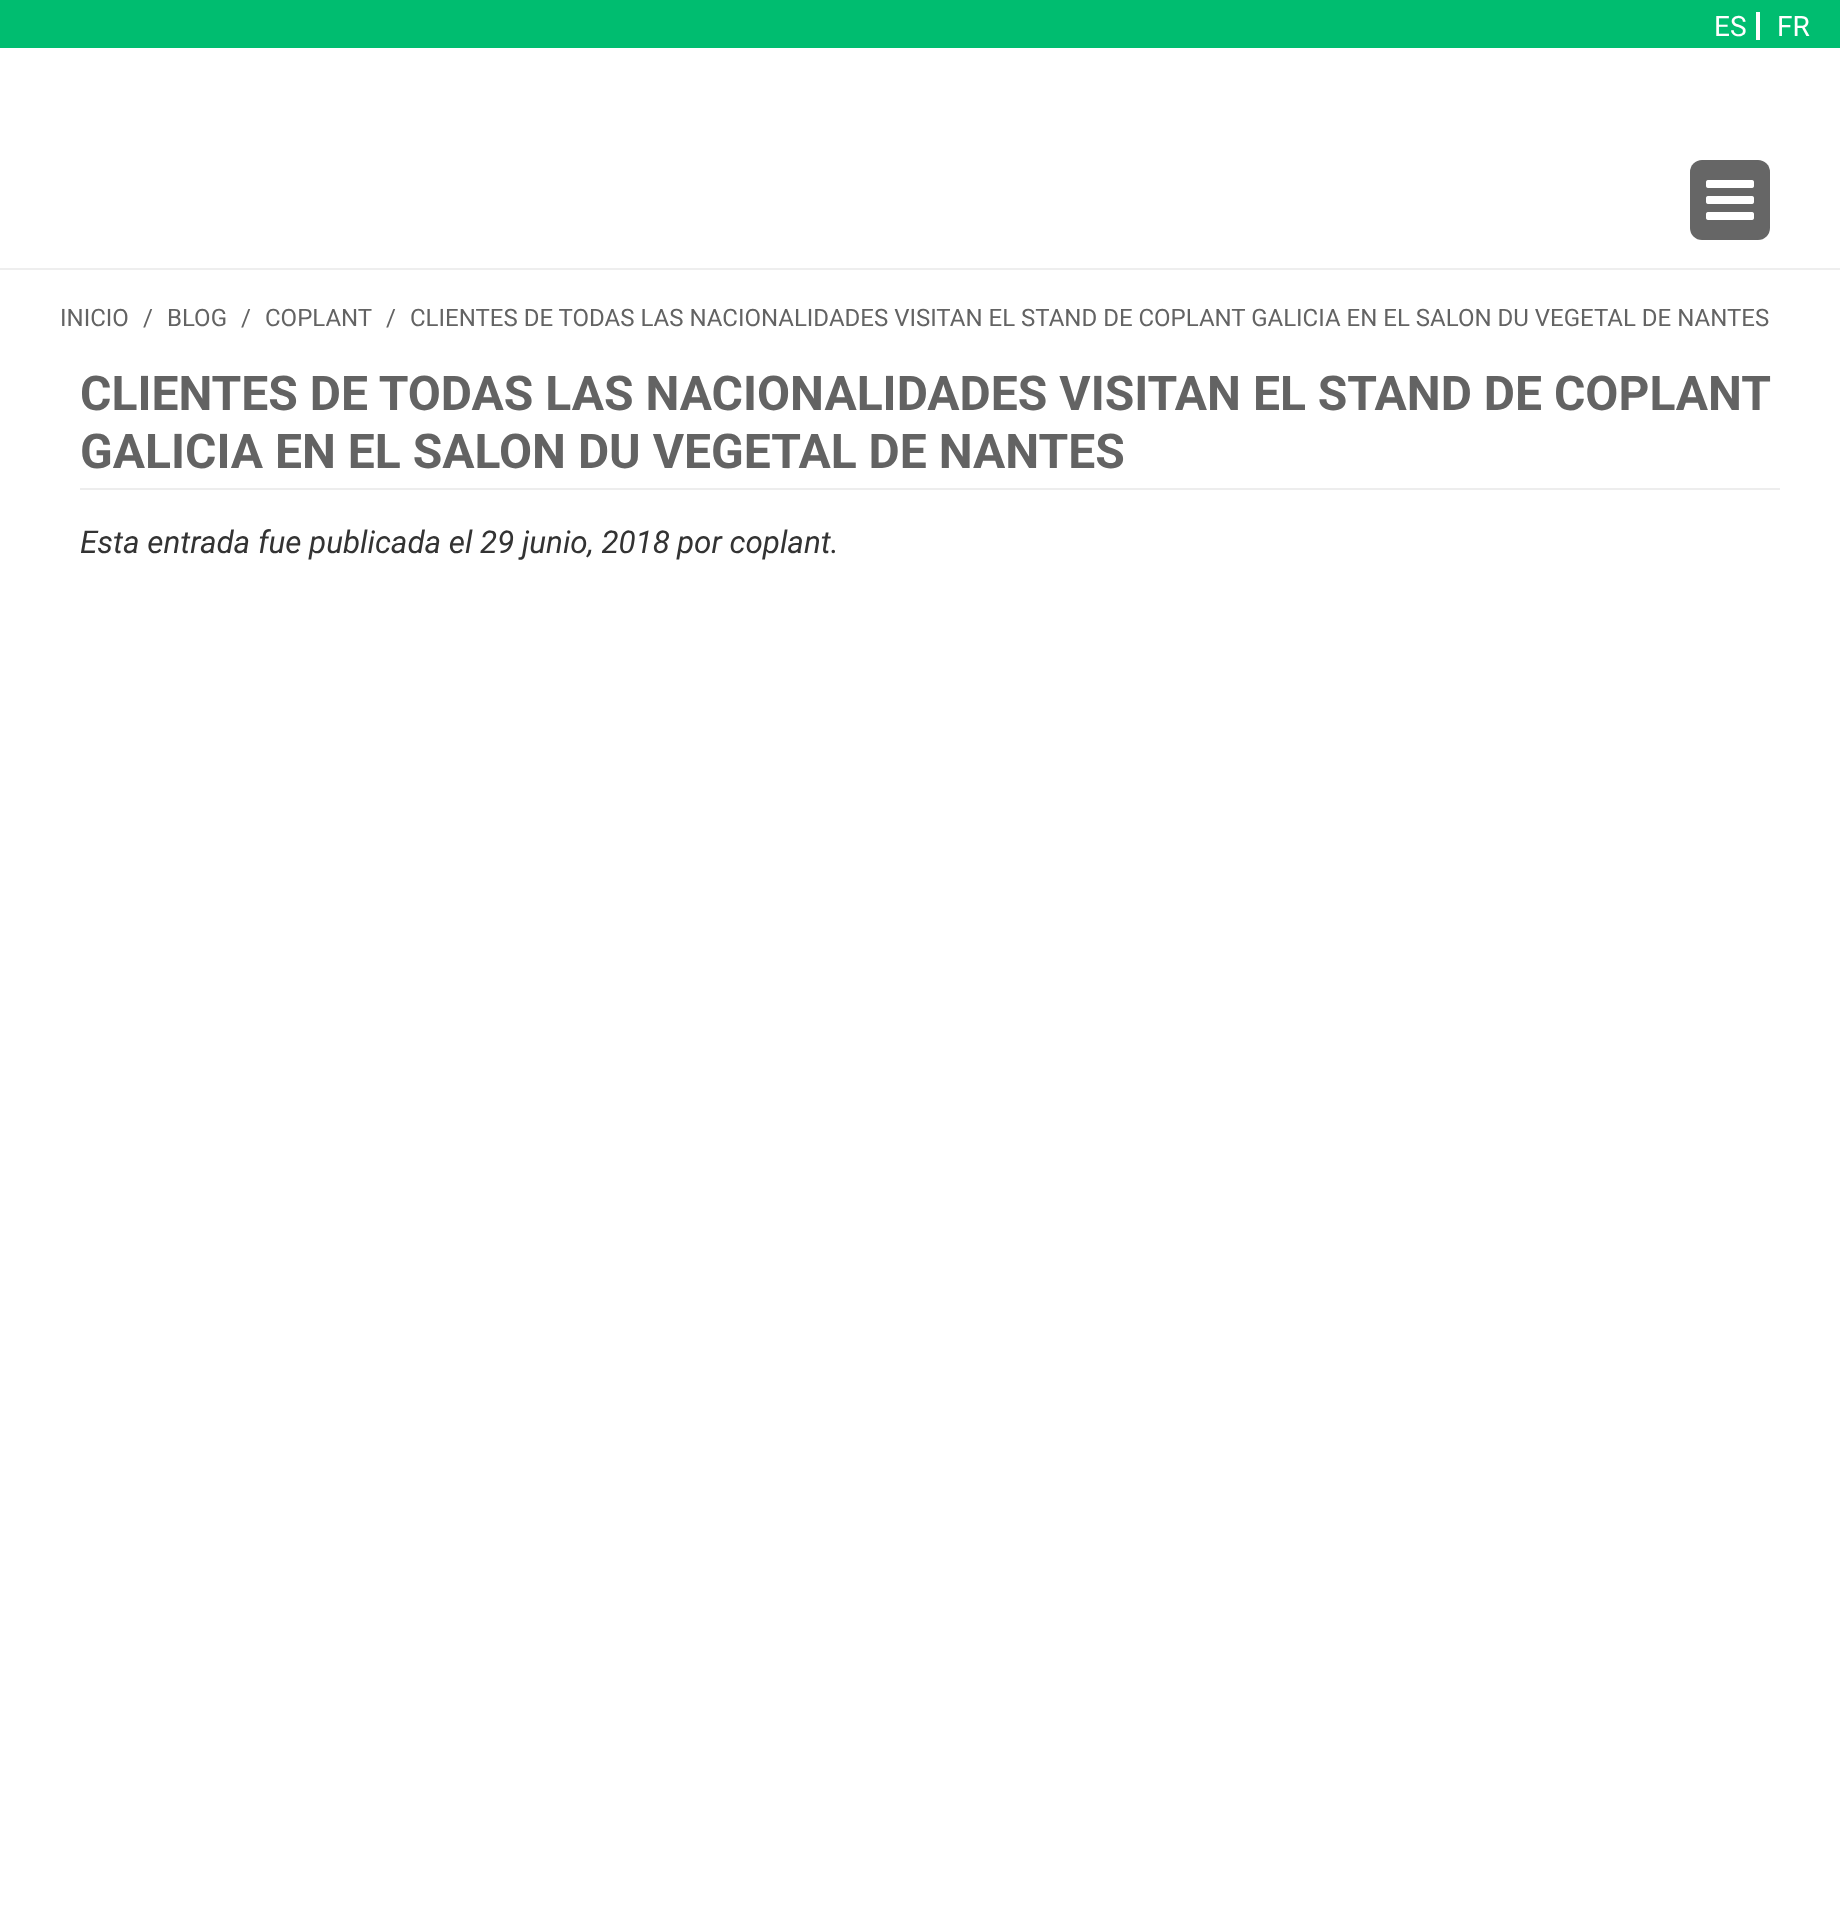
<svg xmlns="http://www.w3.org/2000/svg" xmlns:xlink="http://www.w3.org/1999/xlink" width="1840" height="1905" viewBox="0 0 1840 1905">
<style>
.cls-1{font:28px Roboto;fill:#ffffff}
.cls-2{font:24px Roboto;fill:#636363}
.cls-3{font:bold 48px Roboto;fill:#636363}
.cls-4{font:italic 31.4px Roboto;fill:#333333}
</style>
<rect width="100%" height="100%" fill="#ffffff"/>
<rect fill="#00bd70" x="0" y="0" width="1840" height="48"/>
<rect fill="#eeeeee" x="0" y="268" width="1840" height="2"/>
<rect fill="#ffffff" x="1756" y="12" width="4" height="28"/>
<rect fill="#666666" x="1690" y="160" width="80" height="80" rx="12"/>
<image xlink:href="image0.png" x="1706" y="180" width="48" height="40"/>
<rect fill="#ededed" x="80" y="488" width="1700" height="2"/>
<text class="cls-1" x="1714" y="36">ES</text>
<text class="cls-1" x="1777" y="36">FR</text>
<text class="cls-2" x="60" y="326">INICIO</text>
<text class="cls-2" x="143" y="326">/</text>
<text class="cls-2" x="167" y="326">BLOG</text>
<text class="cls-2" x="241" y="326">/</text>
<text class="cls-2" x="265" y="326">COPLANT</text>
<text class="cls-2" x="386" y="326">/</text>
<text class="cls-2" x="410" y="326">CLIENTES DE TODAS LAS NACIONALIDADES VISITAN EL STAND DE COPLANT GALICIA EN EL SALON DU VEGETAL DE NANTES</text>
<text class="cls-3"><tspan x="80" y="410">CLIENTES DE TODAS LAS NACIONALIDADES VISITAN EL STAND DE COPLANT</tspan><tspan x="80" y="468">GALICIA EN EL SALON DU VEGETAL DE NANTES</tspan></text>
<text class="cls-4" x="80" y="553">Esta entrada fue publicada el 29 junio, 2018</text>
<text class="cls-4" x="677" y="553">por coplant.</text>
</svg>
